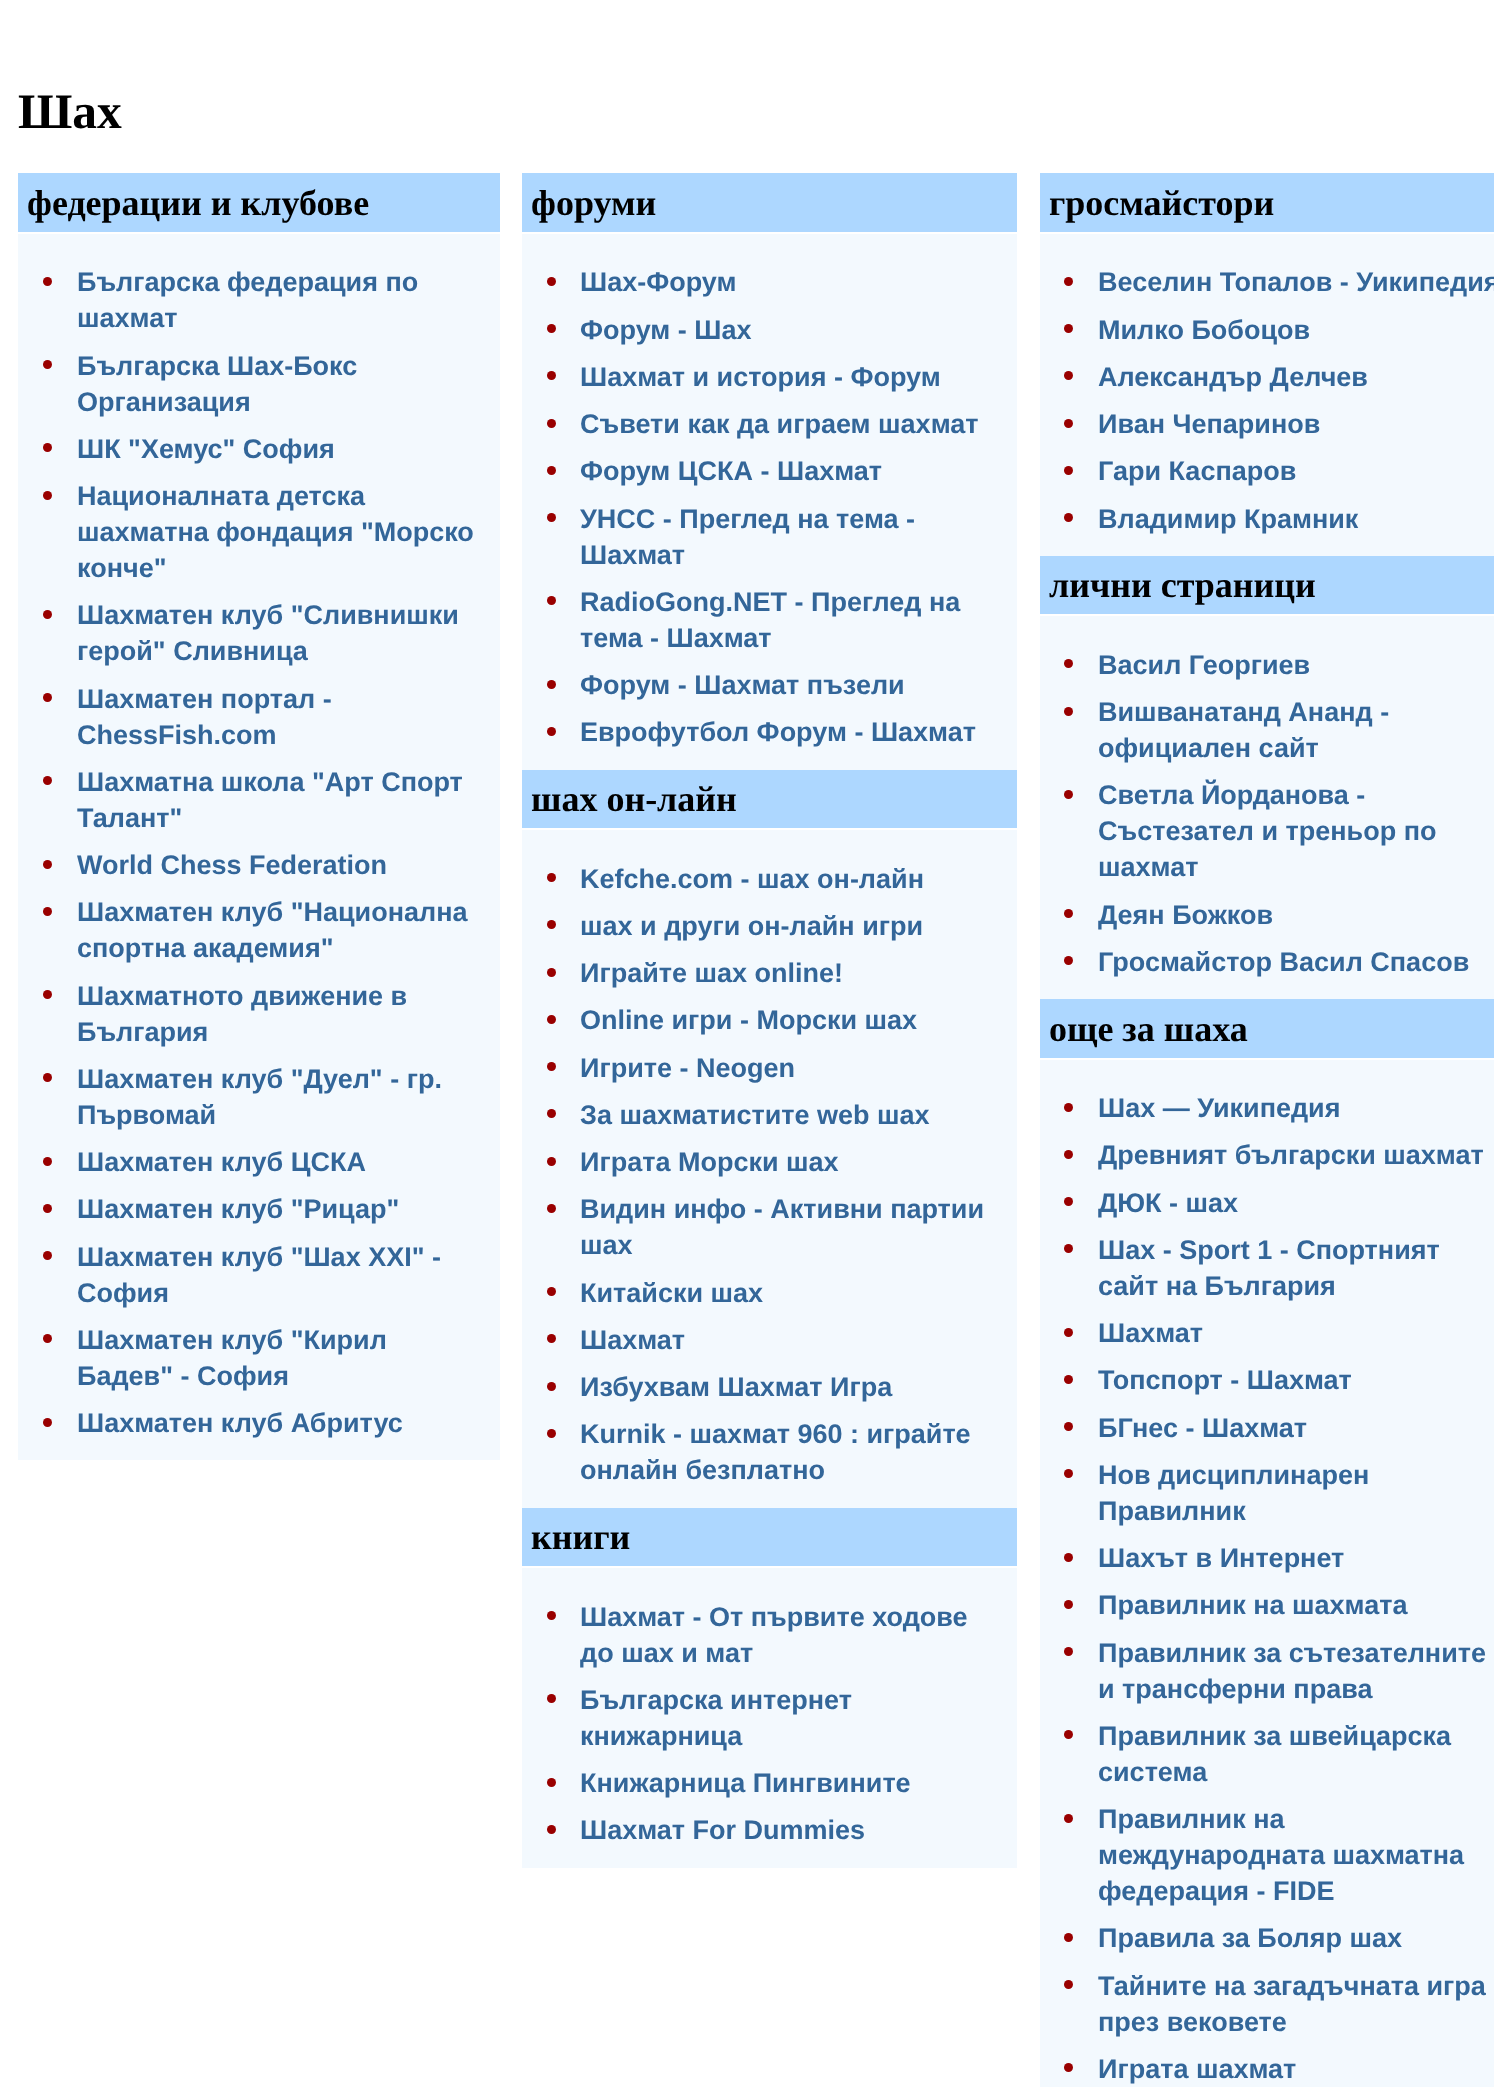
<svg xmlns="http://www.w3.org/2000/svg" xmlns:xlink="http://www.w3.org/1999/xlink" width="1494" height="2087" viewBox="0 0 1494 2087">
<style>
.cls-1{font:bold 49.5px Liberation Serif;fill:#000000}
.cls-2{font:bold 36px Liberation Serif;fill:#000000}
.cls-3{font:bold 27px Liberation Sans;fill:#336699}
</style>
<rect width="100%" height="100%" fill="#ffffff"/>
<rect fill="#f3f9fe" x="18" y="234" width="482" height="1226"/>
<rect fill="#add7ff" x="18" y="173" width="482" height="59"/>
<circle fill="#990000" cx="47.5" cy="281.5" r="4.5"/>
<circle fill="#990000" cx="47.5" cy="364.5" r="4.5"/>
<circle fill="#990000" cx="47.5" cy="447.5" r="4.5"/>
<circle fill="#990000" cx="47.5" cy="495.5" r="4.5"/>
<circle fill="#990000" cx="47.5" cy="614.5" r="4.5"/>
<circle fill="#990000" cx="47.5" cy="697.5" r="4.5"/>
<circle fill="#990000" cx="47.5" cy="780.5" r="4.5"/>
<circle fill="#990000" cx="47.5" cy="864.5" r="4.5"/>
<circle fill="#990000" cx="47.5" cy="911.5" r="4.5"/>
<circle fill="#990000" cx="47.5" cy="994.5" r="4.5"/>
<circle fill="#990000" cx="47.5" cy="1077.5" r="4.5"/>
<circle fill="#990000" cx="47.5" cy="1161.5" r="4.5"/>
<circle fill="#990000" cx="47.5" cy="1208.5" r="4.5"/>
<circle fill="#990000" cx="47.5" cy="1255.5" r="4.5"/>
<circle fill="#990000" cx="47.5" cy="1338.5" r="4.5"/>
<circle fill="#990000" cx="47.5" cy="1422.5" r="4.5"/>
<rect fill="#f3f9fe" x="522" y="234" width="495" height="536"/>
<rect fill="#add7ff" x="522" y="173" width="495" height="59"/>
<circle fill="#990000" cx="551.5" cy="281.5" r="4.5"/>
<circle fill="#990000" cx="551.5" cy="328.5" r="4.5"/>
<circle fill="#990000" cx="551.5" cy="375.5" r="4.5"/>
<circle fill="#990000" cx="551.5" cy="423.5" r="4.5"/>
<circle fill="#990000" cx="551.5" cy="470.5" r="4.5"/>
<circle fill="#990000" cx="551.5" cy="517.5" r="4.5"/>
<circle fill="#990000" cx="551.5" cy="600.5" r="4.5"/>
<circle fill="#990000" cx="551.5" cy="684.5" r="4.5"/>
<circle fill="#990000" cx="551.5" cy="731.5" r="4.5"/>
<rect fill="#f3f9fe" x="522" y="830" width="495" height="678"/>
<rect fill="#add7ff" x="522" y="770" width="495" height="58"/>
<circle fill="#990000" cx="551.5" cy="877.5" r="4.5"/>
<circle fill="#990000" cx="551.5" cy="924.5" r="4.5"/>
<circle fill="#990000" cx="551.5" cy="972.5" r="4.5"/>
<circle fill="#990000" cx="551.5" cy="1019.5" r="4.5"/>
<circle fill="#990000" cx="551.5" cy="1066.5" r="4.5"/>
<circle fill="#990000" cx="551.5" cy="1113.5" r="4.5"/>
<circle fill="#990000" cx="551.5" cy="1161.5" r="4.5"/>
<circle fill="#990000" cx="551.5" cy="1208.5" r="4.5"/>
<circle fill="#990000" cx="551.5" cy="1291.5" r="4.5"/>
<circle fill="#990000" cx="551.5" cy="1338.5" r="4.5"/>
<circle fill="#990000" cx="551.5" cy="1386.5" r="4.5"/>
<circle fill="#990000" cx="551.5" cy="1433.5" r="4.5"/>
<rect fill="#f3f9fe" x="522" y="1568" width="495" height="300"/>
<rect fill="#add7ff" x="522" y="1508" width="495" height="58"/>
<circle fill="#990000" cx="551.5" cy="1615.5" r="4.5"/>
<circle fill="#990000" cx="551.5" cy="1698.5" r="4.5"/>
<circle fill="#990000" cx="551.5" cy="1782.5" r="4.5"/>
<circle fill="#990000" cx="551.5" cy="1829.5" r="4.5"/>
<rect fill="#f3f9fe" x="1040" y="234" width="454" height="322"/>
<rect fill="#add7ff" x="1040" y="173" width="454" height="59"/>
<circle fill="#990000" cx="1068.5" cy="281.5" r="4.5"/>
<circle fill="#990000" cx="1068.5" cy="328.5" r="4.5"/>
<circle fill="#990000" cx="1068.5" cy="375.5" r="4.5"/>
<circle fill="#990000" cx="1068.5" cy="423.5" r="4.5"/>
<circle fill="#990000" cx="1068.5" cy="470.5" r="4.5"/>
<circle fill="#990000" cx="1068.5" cy="517.5" r="4.5"/>
<rect fill="#f3f9fe" x="1040" y="616" width="454" height="383"/>
<rect fill="#add7ff" x="1040" y="556" width="454" height="58"/>
<circle fill="#990000" cx="1068.5" cy="663.5" r="4.5"/>
<circle fill="#990000" cx="1068.5" cy="711.5" r="4.5"/>
<circle fill="#990000" cx="1068.5" cy="794.5" r="4.5"/>
<circle fill="#990000" cx="1068.5" cy="913.5" r="4.5"/>
<circle fill="#990000" cx="1068.5" cy="960.5" r="4.5"/>
<rect fill="#f3f9fe" x="1040" y="1060" width="454" height="1027"/>
<rect fill="#add7ff" x="1040" y="999" width="454" height="59"/>
<circle fill="#990000" cx="1068.5" cy="1107.5" r="4.5"/>
<circle fill="#990000" cx="1068.5" cy="1154.5" r="4.5"/>
<circle fill="#990000" cx="1068.5" cy="1201.5" r="4.5"/>
<circle fill="#990000" cx="1068.5" cy="1248.5" r="4.5"/>
<circle fill="#990000" cx="1068.5" cy="1332.5" r="4.5"/>
<circle fill="#990000" cx="1068.5" cy="1379.5" r="4.5"/>
<circle fill="#990000" cx="1068.5" cy="1426.5" r="4.5"/>
<circle fill="#990000" cx="1068.5" cy="1473.5" r="4.5"/>
<circle fill="#990000" cx="1068.5" cy="1557.5" r="4.5"/>
<circle fill="#990000" cx="1068.5" cy="1604.5" r="4.5"/>
<circle fill="#990000" cx="1068.5" cy="1651.5" r="4.5"/>
<circle fill="#990000" cx="1068.5" cy="1734.5" r="4.5"/>
<circle fill="#990000" cx="1068.5" cy="1818.5" r="4.5"/>
<circle fill="#990000" cx="1068.5" cy="1937.5" r="4.5"/>
<circle fill="#990000" cx="1068.5" cy="1984.5" r="4.5"/>
<circle fill="#990000" cx="1068.5" cy="2067.5" r="4.5"/>
<text class="cls-1" x="18" y="128">Шах</text>
<text class="cls-2" x="27" y="215">федерации и клубове</text>
<text class="cls-3"><tspan x="77" y="291">Българска федерация по</tspan><tspan x="77" y="327">шахмат</tspan><tspan x="77" y="375">Българска Шах-Бокс</tspan><tspan x="77" y="411">Организация</tspan><tspan x="77" y="458">ШК "Хемус" София</tspan><tspan x="77" y="505">Националната детска</tspan><tspan x="77" y="541">шахматна фондация "Морско</tspan><tspan x="77" y="577">конче"</tspan><tspan x="77" y="624">Шахматен клуб "Сливнишки</tspan><tspan x="77" y="660">герой" Сливница</tspan><tspan x="77" y="708">Шахматен портал -</tspan><tspan x="77" y="744">ChessFish.com</tspan><tspan x="77" y="791">Шахматна школа "Арт Спорт</tspan><tspan x="77" y="827">Талант"</tspan><tspan x="77" y="874">World Chess Federation</tspan><tspan x="77" y="921">Шахматен клуб "Национална</tspan><tspan x="77" y="957">спортна академия"</tspan><tspan x="77" y="1005">Шахматното движение в</tspan><tspan x="77" y="1041">България</tspan><tspan x="77" y="1088">Шахматен клуб "Дуел" - гр.</tspan><tspan x="77" y="1124">Първомай</tspan><tspan x="77" y="1171">Шахматен клуб ЦСКА</tspan><tspan x="77" y="1218">Шахматен клуб "Рицар"</tspan><tspan x="77" y="1266">Шахматен клуб "Шах XXI" -</tspan><tspan x="77" y="1302">София</tspan><tspan x="77" y="1349">Шахматен клуб "Кирил</tspan><tspan x="77" y="1385">Бадев" - София</tspan><tspan x="77" y="1432">Шахматен клуб Абритус</tspan></text>
<text class="cls-2" x="531" y="215">форуми</text>
<text class="cls-3"><tspan x="580" y="291">Шах-Форум</tspan><tspan x="580" y="339">Форум - Шах</tspan><tspan x="580" y="386">Шахмат и история - Форум</tspan><tspan x="580" y="433">Съвети как да играем шахмат</tspan><tspan x="580" y="480">Форум ЦСКА - Шахмат</tspan><tspan x="580" y="528">УНСС - Преглед на тема -</tspan><tspan x="580" y="564">Шахмат</tspan><tspan x="580" y="611">RadioGong.NET - Преглед на</tspan><tspan x="580" y="647">тема - Шахмат</tspan><tspan x="580" y="694">Форум - Шахмат пъзели</tspan><tspan x="580" y="741">Еврофутбол Форум - Шахмат</tspan></text>
<text class="cls-2" x="531" y="811">шах он-лайн</text>
<text class="cls-3"><tspan x="580" y="888">Kefche.com - шах он-лайн</tspan><tspan x="580" y="935">шах и други он-лайн игри</tspan><tspan x="580" y="982">Играйте шах online!</tspan><tspan x="580" y="1029">Оnline игри - Морски шах</tspan><tspan x="580" y="1077">Игрите - Neogen</tspan><tspan x="580" y="1124">За шахматистите web шах</tspan><tspan x="580" y="1171">Играта Морски шах</tspan><tspan x="580" y="1218">Видин инфо - Активни партии</tspan><tspan x="580" y="1254">шах</tspan><tspan x="580" y="1302">Китайски шах</tspan><tspan x="580" y="1349">Шахмат</tspan><tspan x="580" y="1396">Избухвам Шахмат Игра</tspan><tspan x="580" y="1443">Kurnik - шахмат 960 : играйте</tspan><tspan x="580" y="1479">онлайн безплатно</tspan></text>
<text class="cls-2" x="531" y="1549">книги</text>
<text class="cls-3"><tspan x="580" y="1626">Шахмат - От първите ходове</tspan><tspan x="580" y="1662">до шах и мат</tspan><tspan x="580" y="1709">Българска интернет</tspan><tspan x="580" y="1745">книжарница</tspan><tspan x="580" y="1792">Книжарница Пингвините</tspan><tspan x="580" y="1839">Шахмат For Dummies</tspan></text>
<text class="cls-2" x="1049" y="215">гросмайстори</text>
<text class="cls-3"><tspan x="1098" y="291">Веселин Топалов - Уикипедия</tspan><tspan x="1098" y="339">Милко Бобоцов</tspan><tspan x="1098" y="386">Александър Делчев</tspan><tspan x="1098" y="433">Иван Чепаринов</tspan><tspan x="1098" y="480">Гари Каспаров</tspan><tspan x="1098" y="528">Владимир Крамник</tspan></text>
<text class="cls-2" x="1049" y="597">лични страници</text>
<text class="cls-3"><tspan x="1098" y="674">Васил Георгиев</tspan><tspan x="1098" y="721">Вишванатанд Ананд -</tspan><tspan x="1098" y="757">официален сайт</tspan><tspan x="1098" y="804">Светла Йорданова -</tspan><tspan x="1098" y="840">Състезател и треньор по</tspan><tspan x="1098" y="876">шахмат</tspan><tspan x="1098" y="924">Деян Божков</tspan><tspan x="1098" y="971">Гросмайстор Васил Спасов</tspan></text>
<text class="cls-2" x="1049" y="1041">още за шаха</text>
<text class="cls-3"><tspan x="1098" y="1117">Шах — Уикипедия</tspan><tspan x="1098" y="1164">Древният български шахмат</tspan><tspan x="1098" y="1212">ДЮК - шах</tspan><tspan x="1098" y="1259">Шах - Sport 1 - Спортният</tspan><tspan x="1098" y="1295">сайт на България</tspan><tspan x="1098" y="1342">Шахмат</tspan><tspan x="1098" y="1389">Топспорт - Шахмат</tspan><tspan x="1098" y="1437">БГнес - Шахмат</tspan><tspan x="1098" y="1484">Нов дисциплинарен</tspan><tspan x="1098" y="1520">Правилник</tspan><tspan x="1098" y="1567">Шахът в Интернет</tspan><tspan x="1098" y="1614">Правилник на шахмата</tspan><tspan x="1098" y="1662">Правилник за сътезателните</tspan><tspan x="1098" y="1698">и трансферни права</tspan><tspan x="1098" y="1745">Правилник за швейцарска</tspan><tspan x="1098" y="1781">система</tspan><tspan x="1098" y="1828">Правилник на</tspan><tspan x="1098" y="1864">международната шахматна</tspan><tspan x="1098" y="1900">федерация - FIDE</tspan><tspan x="1098" y="1947">Правила за Боляр шах</tspan><tspan x="1098" y="1995">Тайните на загадъчната игра</tspan><tspan x="1098" y="2031">през вековете</tspan><tspan x="1098" y="2078">Играта шахмат</tspan></text>
</svg>
